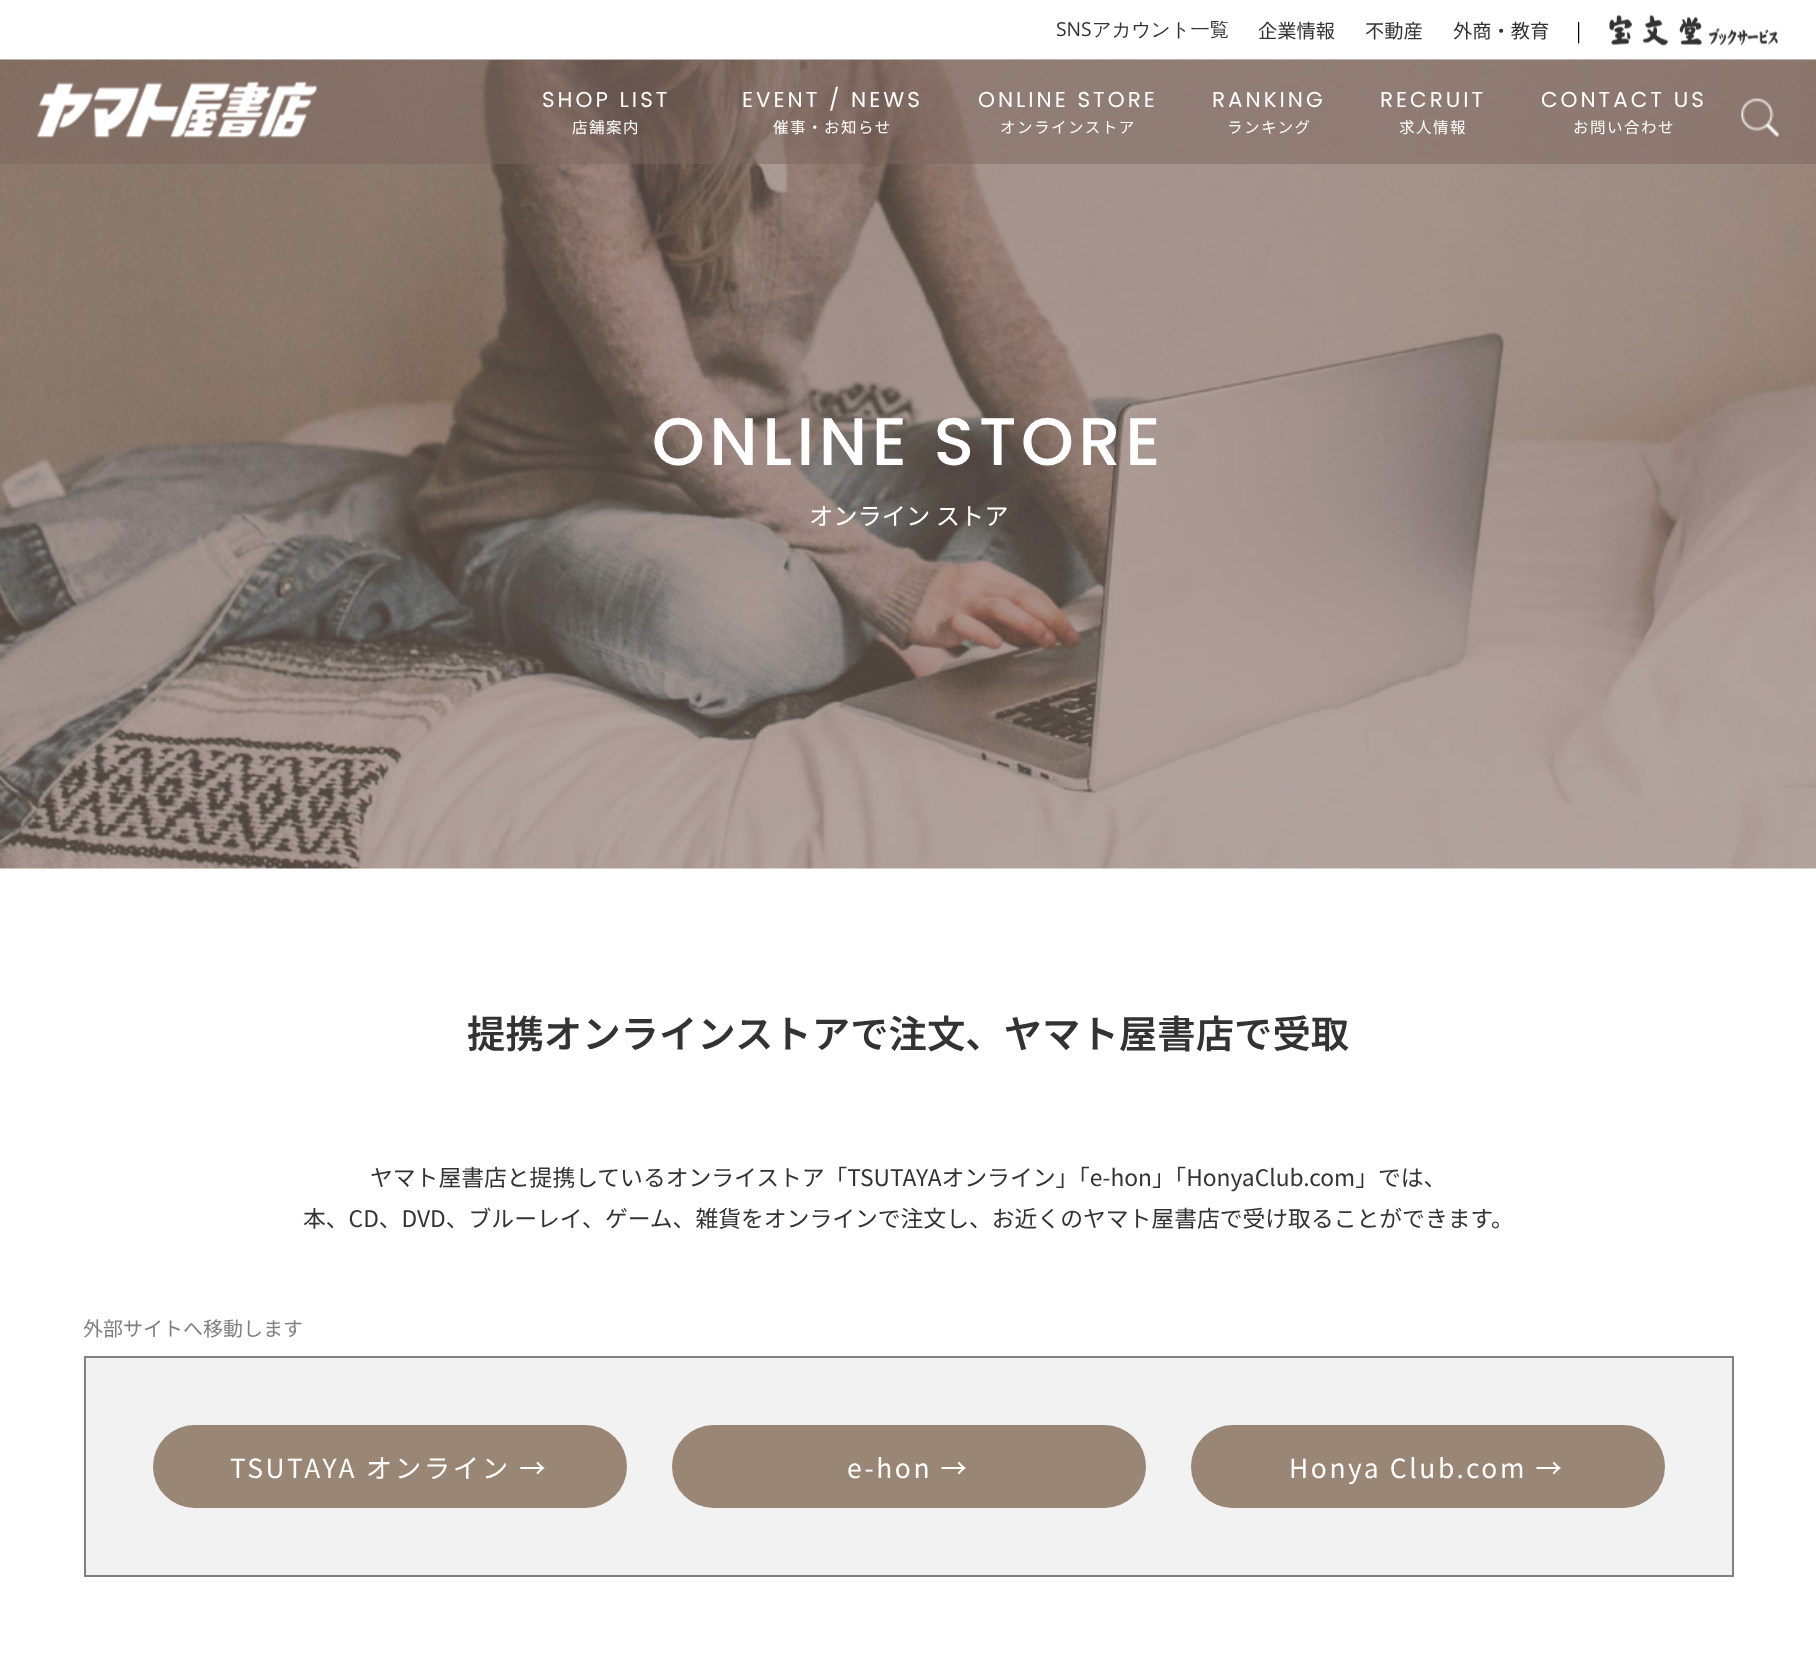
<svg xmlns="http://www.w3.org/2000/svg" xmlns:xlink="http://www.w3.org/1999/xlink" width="1816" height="1676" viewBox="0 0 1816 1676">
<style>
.cls-1{font:19.25px Open Sans;fill:#333333}
.cls-2{font:500 19.25px WenQuanYi Zen Hei;fill:#333333}
.cls-3{font:19.25px Noto Sans JP;fill:#333333}
.cls-4{font:19.25px Noto Sans JP;fill:#000000}
.cls-5{font:21.5px Poppins;letter-spacing:3px;fill:#ffffff}
.cls-6{font:15.5px Noto Sans JP;letter-spacing:1.5px;fill:#ffffff}
.cls-7{font:500 67.25px Poppins;letter-spacing:4.5px;fill:#ffffff}
.cls-8{font:24.25px Noto Sans JP;fill:#ffffff}
.cls-9{font:600 38.4px Noto Sans JP;fill:#333333}
.cls-10{font:22.8px Noto Sans JP;fill:#333333}
.cls-11{font:20px Noto Sans JP;fill:#808080}
.cls-12{font:26.4px Noto Sans JP;letter-spacing:2.6px;fill:#ffffff}
</style>
<rect width="100%" height="100%" fill="#ffffff"/>
<image xlink:href="image0.png" x="1609" y="14" width="169" height="32"/>
<image xlink:href="image3.png" x="0" y="60" width="1816" height="809"/>
<rect fill="#7b665e" fill-opacity="0.5" x="0" y="59" width="1816" height="105"/>
<image xlink:href="image1.png" x="37" y="81" width="280" height="57"/>
<image xlink:href="image2.png" x="1741" y="98" width="38" height="39"/>
<rect fill="#f2f2f2" stroke="#808080" stroke-width="2" x="85" y="1357" width="1648" height="219"/>
<rect fill="#998675" x="153" y="1425" width="474" height="83" rx="41.5"/>
<rect fill="#998675" x="672" y="1425" width="474" height="83" rx="41.5"/>
<rect fill="#998675" x="1191" y="1425" width="474" height="83" rx="41.5"/>
<text class="cls-1" x="1056" y="36">SNS</text>
<text class="cls-2" x="1092" y="36">アカウント一覧</text>
<text class="cls-3" x="1258" y="38">企業情報</text>
<text class="cls-3" x="1365" y="38">不動産</text>
<text class="cls-3" x="1453" y="38">外商・教育</text>
<text class="cls-4" x="1576" y="38">|</text>
<text class="cls-5" x="542" y="107">SHOP LIST</text>
<text class="cls-6" x="572" y="133">店舗案内</text>
<text class="cls-5" x="742" y="107">EVENT / NEWS</text>
<text class="cls-6" x="773" y="133">催事・お知らせ</text>
<text class="cls-5" x="978" y="107">ONLINE STORE</text>
<text class="cls-6" x="1000" y="133">オンラインストア</text>
<text class="cls-5" x="1212" y="107">RANKING</text>
<text class="cls-6" x="1227" y="133">ランキング</text>
<text class="cls-5" x="1380" y="107">RECRUIT</text>
<text class="cls-6" x="1399" y="133">求人情報</text>
<text class="cls-5" x="1541" y="107">CONTACT US</text>
<text class="cls-6" x="1573" y="133">お問い合わせ</text>
<text class="cls-7" x="652" y="465">ONLINE STORE</text>
<text class="cls-8" x="809" y="525">オンライン ストア</text>
<text class="cls-9" x="467" y="1048">提携オンラインストアで注文、ヤマト屋書店で受取</text>
<text class="cls-10" x="370" y="1186">ヤマト屋書店と提携しているオンライストア「TSUTAYAオンライン」「e-hon」「HonyaClub.com」では、</text>
<text class="cls-10" x="303" y="1227">本、CD、DVD、ブルーレイ、ゲーム、雑貨をオンラインで注文し、お近くのヤマト屋書店で受け取ることができます。</text>
<text class="cls-11" x="83" y="1336">外部サイトへ移動します</text>
<text class="cls-12" x="230" y="1478">TSUTAYA オンライン →</text>
<text class="cls-12" x="847" y="1478">e-hon →</text>
<text class="cls-12" x="1289" y="1478">Honya Club.com →</text>
</svg>
